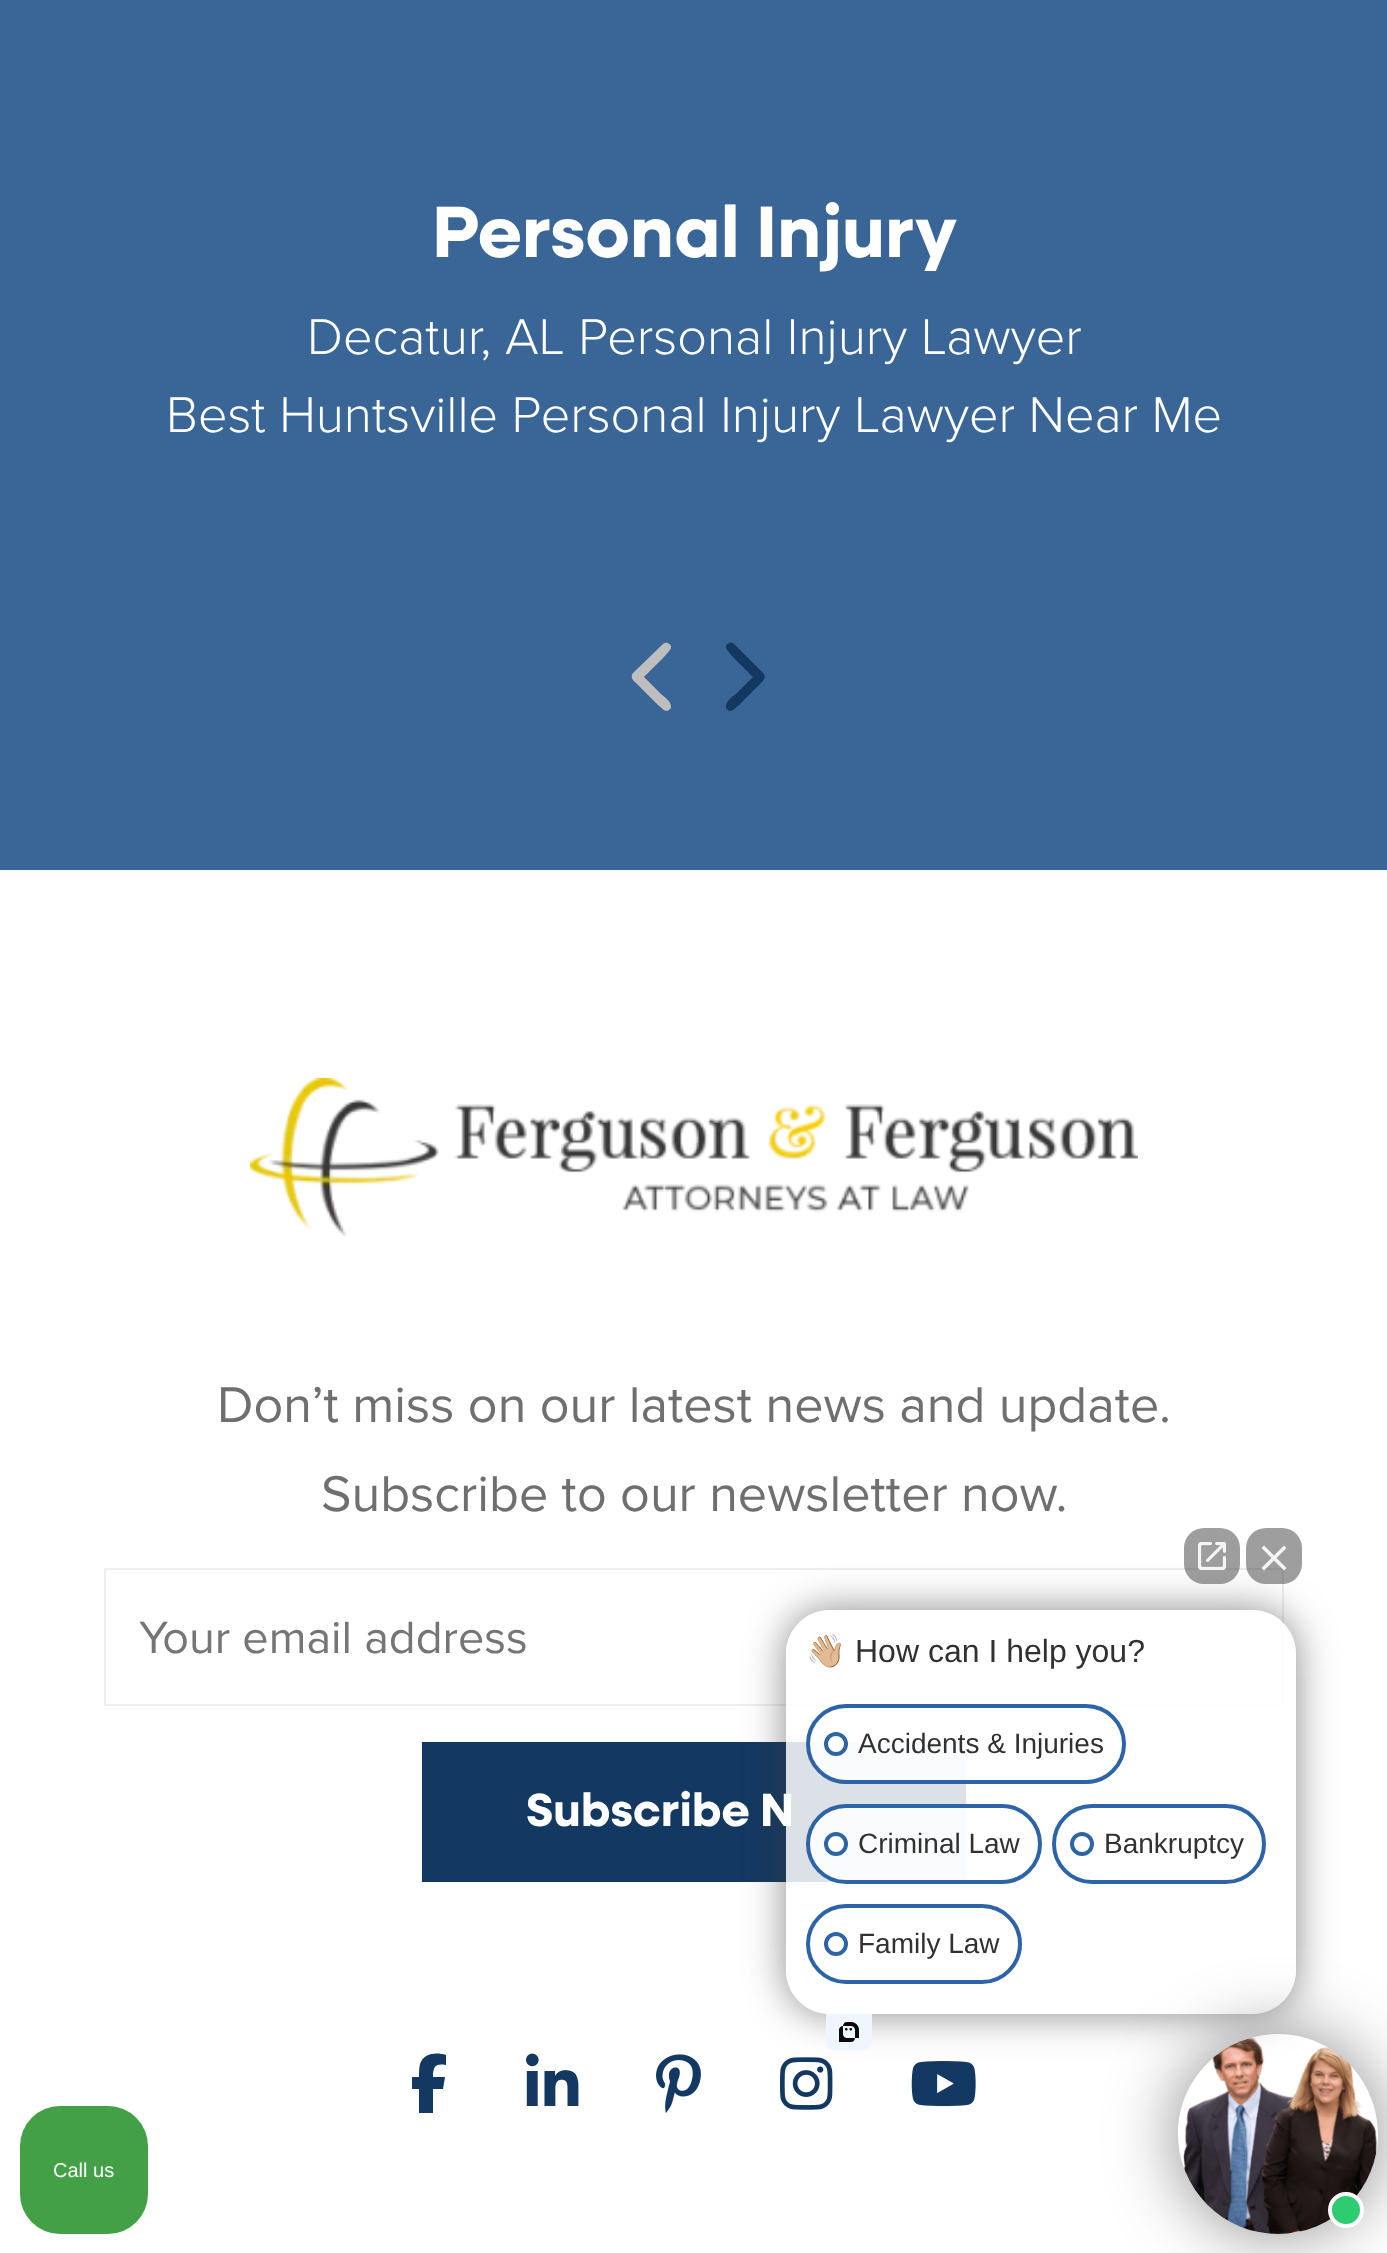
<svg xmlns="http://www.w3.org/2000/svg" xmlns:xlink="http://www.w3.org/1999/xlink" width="1387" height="2253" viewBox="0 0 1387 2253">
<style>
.cls-1{font:bold 73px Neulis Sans;fill:#ffffff}
.cls-2{font:300 52.05px Proxima Nova;fill:#ffffff}
.cls-3{font:52.05px Proxima Nova;fill:#6f6f6f}
.cls-4{font:46.75px Proxima Nova;fill:#757575}
.cls-5{font:bold 46.75px Neulis Sans;fill:#ffffff}
.cls-6{font:32px Noto Color Emoji;fill:#313131}
.cls-7{font:32px Liberation Sans;fill:#313131}
.cls-8{font:28px Liberation Sans;fill:#313131}
.cls-9{font:20px Liberation Sans;fill:#ffffff}
</style>
<defs>
<clipPath id="clip1"><path d="M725 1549H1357V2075H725ZM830 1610H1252C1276.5 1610 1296 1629.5 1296 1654V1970C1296 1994.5 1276.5 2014 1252 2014H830C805.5 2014 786 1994.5 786 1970V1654C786 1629.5 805.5 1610 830 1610Z" clip-rule="evenodd"/></clipPath>
<clipPath id="clip2"><path d="M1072 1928H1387V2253H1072ZM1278 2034C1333 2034 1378 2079 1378 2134C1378 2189 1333 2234 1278 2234C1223 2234 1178 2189 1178 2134C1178 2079 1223 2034 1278 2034Z" clip-rule="evenodd"/></clipPath>
</defs>
<rect width="100%" height="100%" fill="#ffffff"/>
<rect fill="#396597" x="0" y="0" width="1387" height="870"/>
<path fill="#bebebe" d="M633 673C629 678 635 682 638 685L658 705C661 707 665 713 669 710C671 709 671 707 671 706C671 701 663 696 661 694L644 677C648 673 670 652 671 648C672 644 666 641 663 644Z"/>
<path fill="#133862" d="M763 673C768 678 761 682 759 685L739 705C736 707 732 713 728 710C726 709 726 707 726 706C726 701 733 696 736 694L753 677C749 673 727 652 726 648C725 644 731 641 734 644Z"/>
<image xlink:href="image0.png" x="250" y="1078" width="888" height="158"/>
<rect fill="none" stroke="#eeeeee" stroke-width="2" x="105" y="1569" width="1178" height="136"/>
<rect fill="#133862" x="422" y="1742" width="544" height="140"/>
<path fill="#133862" d="M419 2089V2113V2089V2113H433V2089H443L445 2077H433C433 2067 435 2063 446 2065V2055C436 2052 424 2053 420 2064C419 2068 419 2073 419 2077H412V2089Z"/>
<image xlink:href="image1.png" x="526" y="2053" width="53" height="53"/>
<image xlink:href="image2.png" x="656" y="2054" width="45" height="59"/>
<image xlink:href="image3.png" x="780" y="2057" width="53" height="53"/>
<image xlink:href="image4.png" x="911" y="2061" width="65" height="45"/>
<g clip-path="url(#clip1)">
<rect fill="#3c3c3c" fill-opacity="0.6" filter="blur(20px)" x="786" y="1610" width="510" height="404" rx="44"/>
</g>
<rect fill="#272727" fill-opacity="0.45" x="1184" y="1528" width="56" height="56" rx="20"/>
<image xlink:href="image5.png" x="1198" y="1542" width="28" height="28"/>
<rect fill="#272727" fill-opacity="0.45" x="1246" y="1528" width="56" height="56" rx="20"/>
<path fill="#f5f5f5" d="M1261.5 1548L1264 1545.5L1286.5 1568L1284 1570.5Z"/>
<path fill="#f5f5f5" d="M1284 1545.5L1286.5 1548L1264 1570.5L1261.5 1568Z"/>
<image xlink:href="image6.png" x="826" y="2014" width="46" height="36"/>
<rect fill="#43a047" x="20" y="2106" width="128" height="128" rx="40"/>
<text class="cls-1" x="432" y="257">Personal Injury</text>
<text class="cls-2" x="307" y="354">Decatur, AL Personal Injury Lawyer</text>
<text class="cls-2" x="166" y="432">Best Huntsville Personal Injury Lawyer Near Me</text>
<text class="cls-3" x="217" y="1422">Don’t miss on our latest news and update.</text>
<text class="cls-3" x="321" y="1511">Subscribe to our newsletter now.</text>
<text class="cls-4" x="139" y="1653">Your email address</text>
<text class="cls-5" x="526" y="1826">Subscribe N</text>
<rect fill="#ffffff" fill-opacity="0.85" x="786" y="1610" width="510" height="404" rx="44"/>
<text class="cls-6" x="806" y="1662">👋🏼</text>
<text class="cls-7" x="855" y="1662">How can I help you?</text>
<rect fill="#ffffff" fill-opacity="0.85" stroke="#2d64a5" stroke-width="4" x="808" y="1706" width="316" height="76" rx="38"/>
<circle fill="#ffffff" stroke="#2d64a5" stroke-width="4" cx="836" cy="1744" r="10"/>
<text class="cls-8" x="858" y="1753">Accidents &amp; Injuries</text>
<rect fill="#ffffff" fill-opacity="0.85" stroke="#2d64a5" stroke-width="4" x="808" y="1806" width="232" height="76" rx="38"/>
<circle fill="#ffffff" stroke="#2d64a5" stroke-width="4" cx="836" cy="1844" r="10"/>
<text class="cls-8" x="858" y="1853">Criminal Law</text>
<rect fill="none" stroke="#2d64a5" stroke-width="4" x="1054" y="1806" width="210" height="76" rx="38"/>
<circle fill="none" stroke="#2d64a5" stroke-width="4" cx="1082" cy="1844" r="10"/>
<text class="cls-8" x="1104" y="1853">Bankruptcy</text>
<rect fill="none" stroke="#2d64a5" stroke-width="4" x="808" y="1906" width="212" height="76" rx="38"/>
<circle fill="none" stroke="#2d64a5" stroke-width="4" cx="836" cy="1944" r="10"/>
<text class="cls-8" x="858" y="1953">Family Law</text>
<g clip-path="url(#clip2)">
<rect fill="#3c3c3c" fill-opacity="0.6" filter="blur(35px)" x="1178" y="2034" width="200" height="200" rx="100"/>
</g>
<image xlink:href="image7.png" x="1183" y="2037" width="194" height="197"/>
<circle fill="#2ecc71" stroke="#ffffff" stroke-width="4" cx="1346" cy="2210" r="16"/>
<text class="cls-9" x="53" y="2177">Call us</text>
</svg>
